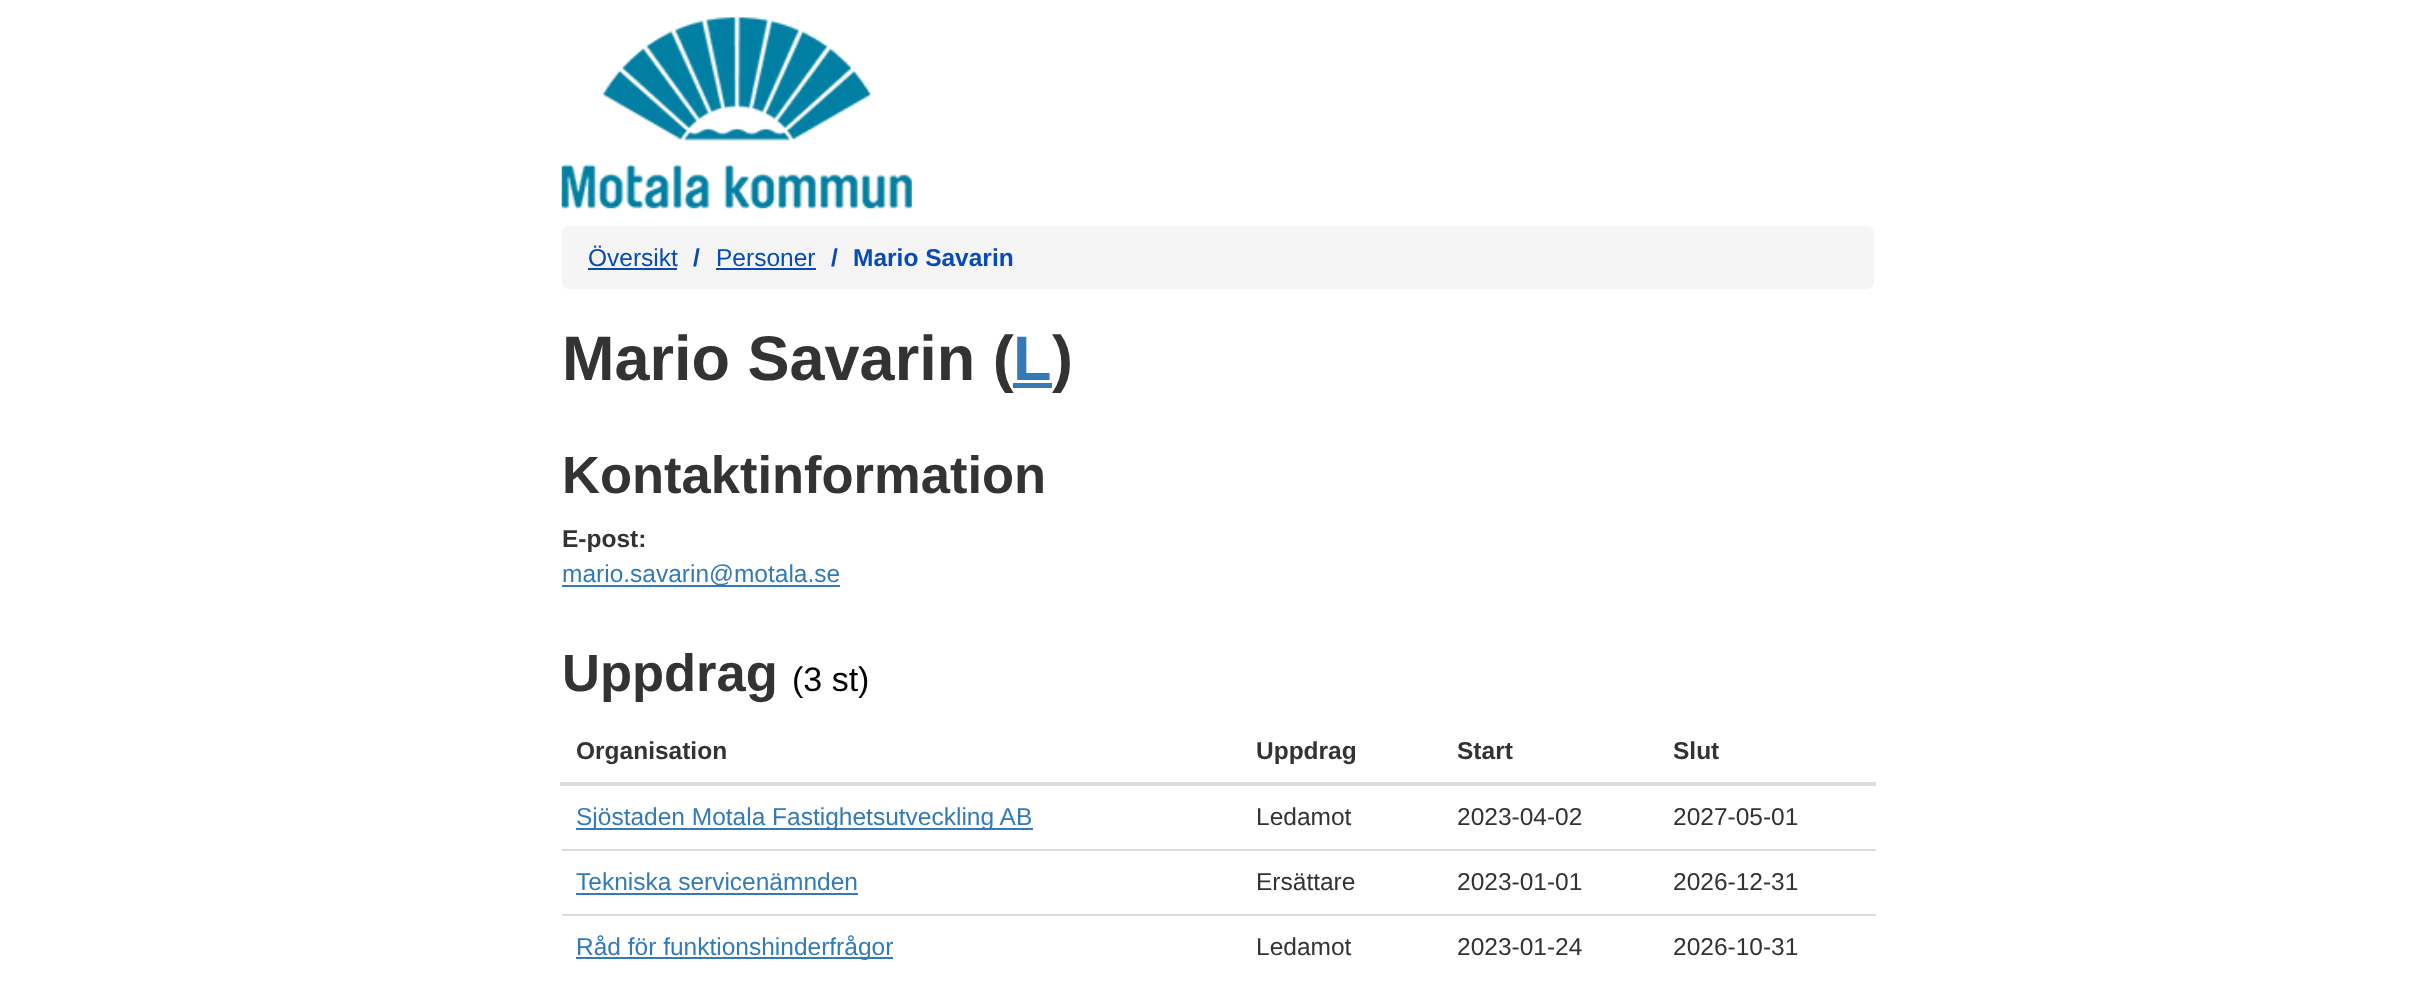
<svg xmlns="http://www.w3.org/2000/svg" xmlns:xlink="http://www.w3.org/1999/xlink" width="2435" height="986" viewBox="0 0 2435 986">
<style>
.cls-1{font:24.5px Liberation Sans;fill:#074bb8}
.cls-2{font:bold 24.5px Liberation Sans;fill:#074bb8}
.cls-3{font:bold 63px Liberation Sans;fill:#333333}
.cls-4{font:bold 63px Liberation Sans;fill:#337ab7}
.cls-5{font:bold 52.5px Liberation Sans;fill:#333333}
.cls-6{font:bold 24.5px Liberation Sans;fill:#333333}
.cls-7{font:24.5px Liberation Sans;fill:#337ab7}
.cls-8{font:34px Liberation Sans;fill:#000000}
.cls-9{font:24.5px Liberation Sans;fill:#333333}
</style>
<rect width="100%" height="100%" fill="#ffffff"/>
<image xlink:href="image0.png" x="561" y="17" width="351" height="192"/>
<rect fill="#f5f5f5" x="562" y="226" width="1312" height="63" rx="7"/>
<rect fill="#074bb8" x="588" y="268" width="89" height="2"/>
<rect fill="#074bb8" x="716" y="268" width="100" height="2"/>
<rect fill="#337ab7" x="562" y="585" width="278" height="2"/>
<rect fill="#dddddd" x="560" y="782" width="1316" height="4"/>
<rect fill="#337ab7" x="576" y="828" width="457" height="2"/>
<rect fill="#337ab7" x="576" y="893" width="282" height="2"/>
<rect fill="#dddddd" x="562" y="849" width="1314" height="2"/>
<rect fill="#337ab7" x="576" y="957" width="317" height="2"/>
<rect fill="#dddddd" x="562" y="914" width="1314" height="2"/>
<text class="cls-1" x="588" y="266">Översikt</text>
<text class="cls-2" x="693" y="266">/</text>
<text class="cls-1" x="716" y="266">Personer</text>
<text class="cls-2" x="831" y="266">/</text>
<text class="cls-2" x="853" y="266">Mario Savarin</text>
<text class="cls-3" x="562" y="380">Mario Savarin (</text>
<text class="cls-4" x="1013" y="380">L</text>
<rect fill="#337ab7" x="1013" y="383" width="39" height="5"/>
<text class="cls-3" x="1052" y="380">)</text>
<text class="cls-5" x="562" y="493">Kontaktinformation</text>
<text class="cls-6" x="562" y="547">E-post:</text>
<text class="cls-7" x="562" y="582">mario.savarin@motala.se</text>
<text class="cls-5" x="562" y="691">Uppdrag</text>
<text class="cls-8" x="792" y="691">(3 st)</text>
<text class="cls-6" x="576" y="759">Organisation</text>
<text class="cls-6" x="1256" y="759">Uppdrag</text>
<text class="cls-6" x="1457" y="759">Start</text>
<text class="cls-6" x="1673" y="759">Slut</text>
<text class="cls-7" x="576" y="825">Sjöstaden Motala Fastighetsutveckling AB</text>
<text class="cls-9" x="1256" y="825">Ledamot</text>
<text class="cls-9" x="1457" y="825">2023-04-02</text>
<text class="cls-9" x="1673" y="825">2027-05-01</text>
<text class="cls-7" x="576" y="890">Tekniska servicenämnden</text>
<text class="cls-9" x="1256" y="890">Ersättare</text>
<text class="cls-9" x="1457" y="890">2023-01-01</text>
<text class="cls-9" x="1673" y="890">2026-12-31</text>
<text class="cls-7" x="576" y="955">Råd för funktionshinderfrågor</text>
<text class="cls-9" x="1256" y="955">Ledamot</text>
<text class="cls-9" x="1457" y="955">2023-01-24</text>
<text class="cls-9" x="1673" y="955">2026-10-31</text>
</svg>
